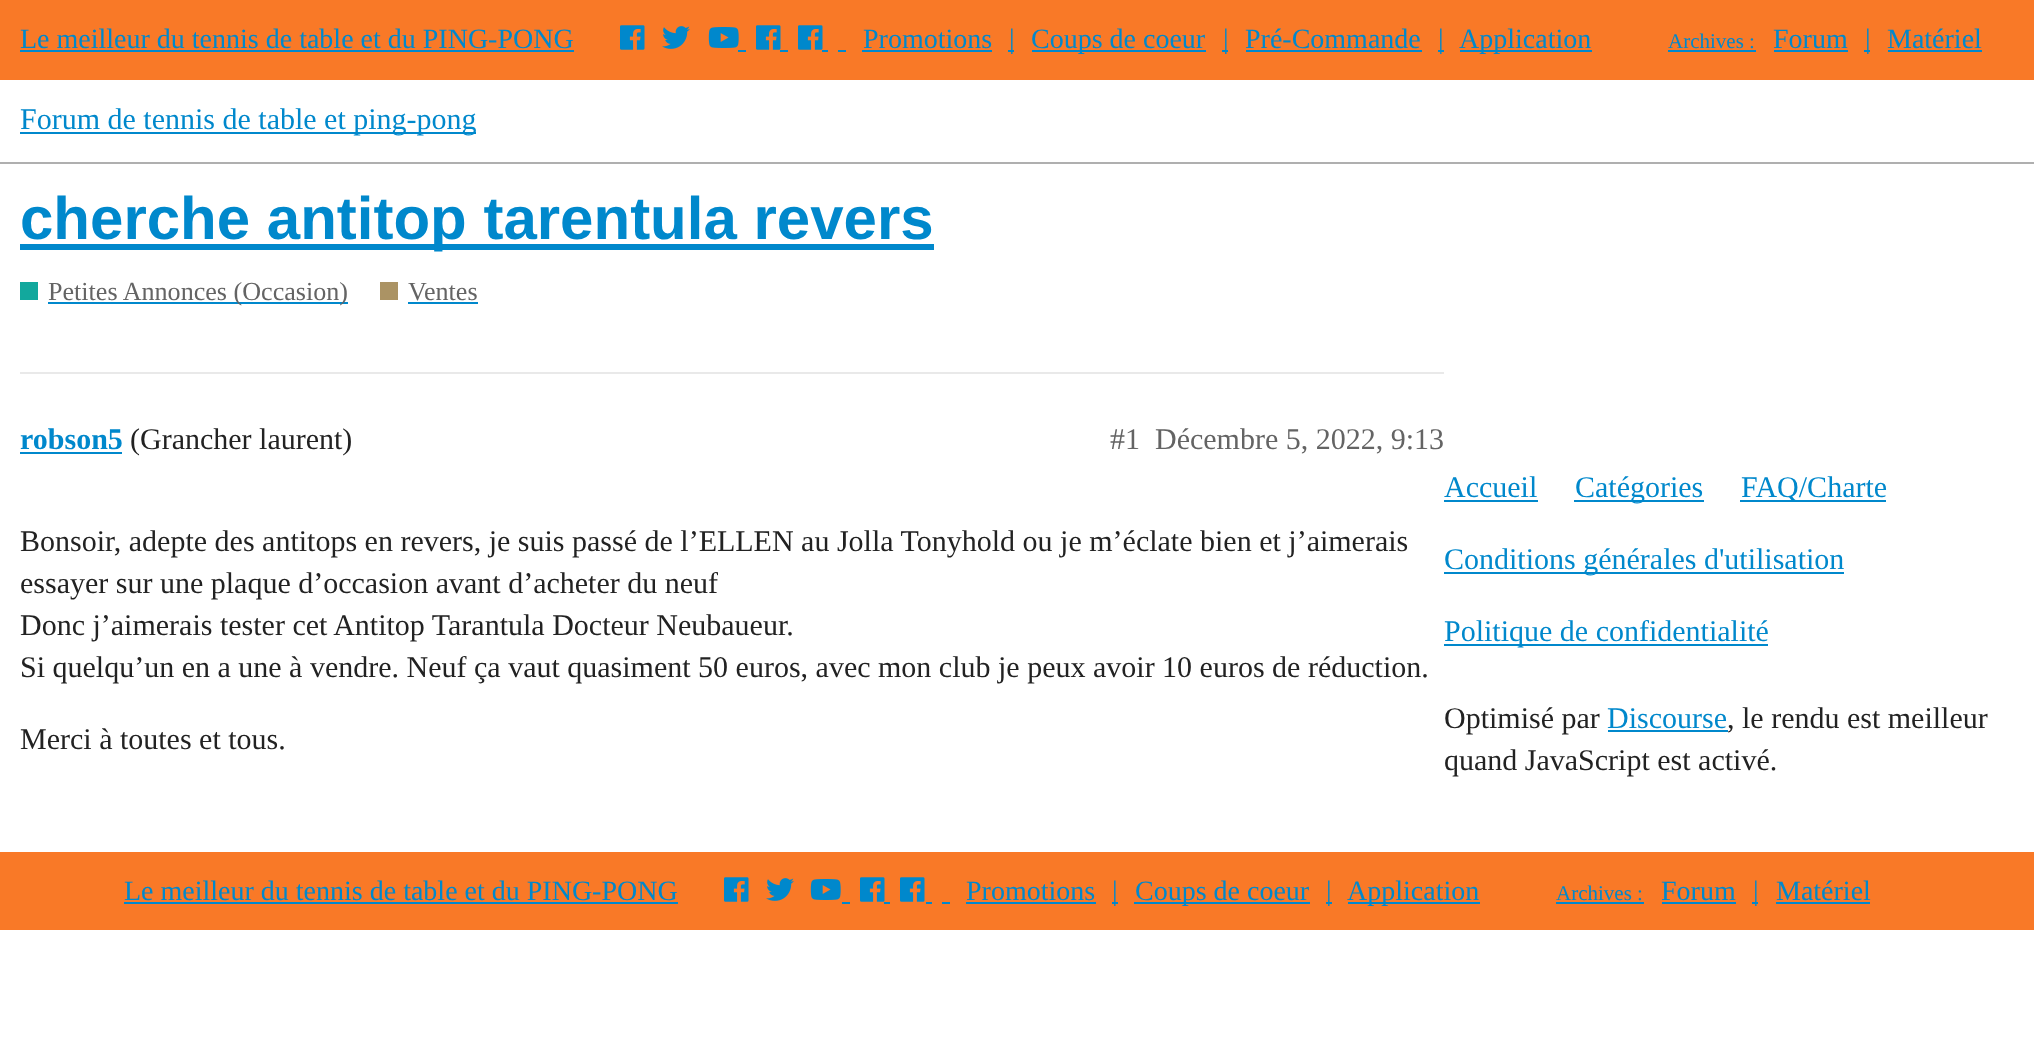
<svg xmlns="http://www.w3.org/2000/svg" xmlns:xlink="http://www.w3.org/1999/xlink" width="2034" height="1037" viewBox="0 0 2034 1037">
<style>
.cls-1{font:28px Liberation Serif;fill:#0088cc}
.cls-2{font:21px Liberation Serif;fill:#0088cc}
.cls-3{font:30px Liberation Serif;fill:#0088cc}
.cls-4{font:bold 60px Liberation Sans;fill:#0088cc}
.cls-5{font:26.1px Liberation Serif;fill:#646464}
.cls-6{font:bold 30px Liberation Serif;fill:#0088cc}
.cls-7{font:30px Liberation Serif;fill:#222222}
.cls-8{font:30px Liberation Serif;fill:#646464}
</style>
<rect width="100%" height="100%" fill="#ffffff"/>
<rect fill="#f97927" x="0" y="0" width="2034" height="80"/>
<rect fill="#0088cc" x="20" y="50" width="554" height="2"/>
<image xlink:href="image0.png" x="620" y="25" width="25" height="25"/>
<image xlink:href="image1.png" x="662" y="26" width="28" height="23"/>
<image xlink:href="image2.png" x="708" y="27" width="31" height="21"/>
<rect fill="#0088cc" x="738" y="50" width="8" height="2"/>
<image xlink:href="image0.png" x="756" y="25" width="25" height="25"/>
<rect fill="#0088cc" x="780" y="50" width="8" height="2"/>
<image xlink:href="image0.png" x="798" y="25" width="25" height="25"/>
<rect fill="#0088cc" x="822" y="50" width="6" height="2"/>
<rect fill="#0088cc" x="862" y="50" width="130" height="2"/>
<rect fill="#0088cc" x="1008" y="50" width="6" height="2"/>
<rect fill="#0088cc" x="1032" y="50" width="174" height="2"/>
<rect fill="#0088cc" x="1222" y="50" width="6" height="2"/>
<rect fill="#0088cc" x="1246" y="50" width="176" height="2"/>
<rect fill="#0088cc" x="1438" y="50" width="6" height="2"/>
<rect fill="#0088cc" x="1460" y="50" width="132" height="2"/>
<rect fill="#0088cc" x="1668" y="50" width="88" height="2"/>
<rect fill="#0088cc" x="1774" y="50" width="74" height="2"/>
<rect fill="#0088cc" x="1864" y="50" width="6" height="2"/>
<rect fill="#0088cc" x="1888" y="50" width="94" height="2"/>
<rect fill="#0088cc" x="838" y="50" width="8" height="2"/>
<rect fill="#afafaf" x="0" y="162" width="2034" height="2"/>
<rect fill="#0088cc" x="20" y="132" width="456" height="2"/>
<rect fill="#0088cc" x="20" y="244" width="914" height="6"/>
<rect fill="#12a89d" x="20" y="282" width="18" height="18"/>
<rect fill="#0088cc" x="48" y="302" width="300" height="2"/>
<rect fill="#ab9364" x="380" y="282" width="18" height="18"/>
<rect fill="#0088cc" x="408" y="302" width="70" height="2"/>
<rect fill="#e9e9e9" x="20" y="372" width="1424" height="2"/>
<rect fill="#0088cc" x="20" y="452" width="102" height="2"/>
<rect fill="#0088cc" x="1444" y="500" width="94" height="2"/>
<rect fill="#0088cc" x="1574" y="500" width="130" height="2"/>
<rect fill="#0088cc" x="1740" y="500" width="146" height="2"/>
<rect fill="#0088cc" x="1444" y="572" width="400" height="2"/>
<rect fill="#0088cc" x="1444" y="644" width="324" height="2"/>
<rect fill="#0088cc" x="1608" y="730" width="120" height="2"/>
<rect fill="#f97927" x="0" y="852" width="2034" height="78"/>
<rect fill="#0088cc" x="124" y="902" width="554" height="2"/>
<image xlink:href="image0.png" x="724" y="877" width="25" height="25"/>
<image xlink:href="image1.png" x="766" y="878" width="28" height="23"/>
<image xlink:href="image2.png" x="810" y="879" width="31" height="21"/>
<rect fill="#0088cc" x="842" y="902" width="8" height="2"/>
<image xlink:href="image0.png" x="860" y="877" width="25" height="25"/>
<rect fill="#0088cc" x="884" y="902" width="6" height="2"/>
<image xlink:href="image0.png" x="900" y="877" width="25" height="25"/>
<rect fill="#0088cc" x="926" y="902" width="6" height="2"/>
<rect fill="#0088cc" x="966" y="902" width="130" height="2"/>
<rect fill="#0088cc" x="1112" y="902" width="6" height="2"/>
<rect fill="#0088cc" x="1134" y="902" width="176" height="2"/>
<rect fill="#0088cc" x="1326" y="902" width="6" height="2"/>
<rect fill="#0088cc" x="1348" y="902" width="132" height="2"/>
<rect fill="#0088cc" x="1556" y="902" width="88" height="2"/>
<rect fill="#0088cc" x="1662" y="902" width="74" height="2"/>
<rect fill="#0088cc" x="1752" y="902" width="6" height="2"/>
<rect fill="#0088cc" x="1776" y="902" width="94" height="2"/>
<rect fill="#0088cc" x="942" y="902" width="8" height="2"/>
<text class="cls-1" x="20" y="48">Le meilleur du tennis de table et du PING-PONG</text>
<text class="cls-1" x="863" y="48">Promotions</text>
<text class="cls-1" x="1009" y="48">|</text>
<text class="cls-1" x="1031" y="48">Coups de coeur</text>
<text class="cls-1" x="1223" y="48">|</text>
<text class="cls-1" x="1245" y="48">Pré-Commande</text>
<text class="cls-1" x="1438" y="48">|</text>
<text class="cls-1" x="1459" y="48">Application</text>
<text class="cls-2" x="1668" y="48">Archives :</text>
<text class="cls-1" x="1773" y="48">Forum</text>
<text class="cls-1" x="1865" y="48">|</text>
<text class="cls-1" x="1887" y="48">Matériel</text>
<text class="cls-3" x="20" y="129">Forum de tennis de table et ping-pong</text>
<text class="cls-4" x="20" y="239">cherche antitop tarentula revers</text>
<text class="cls-5" x="48" y="300">Petites Annonces (Occasion)</text>
<text class="cls-5" x="408" y="300">Ventes</text>
<text class="cls-6" x="20" y="449">robson5</text>
<text class="cls-7" x="130" y="449">(Grancher laurent)</text>
<text class="cls-8" x="1110" y="449">#1</text>
<text class="cls-8" x="1155" y="449">Décembre 5, 2022, 9:13</text>
<text class="cls-7"><tspan x="20" y="551">Bonsoir, adepte des antitops en revers, je suis passé de l’ELLEN au Jolla Tonyhold ou je m’éclate bien et j’aimerais</tspan><tspan x="20" y="593">essayer sur une plaque d’occasion avant d’acheter du neuf</tspan><tspan x="20" y="635">Donc j’aimerais tester cet Antitop Tarantula Docteur Neubaueur.</tspan><tspan x="20" y="677">Si quelqu’un en a une à vendre. Neuf ça vaut quasiment 50 euros, avec mon club je peux avoir 10 euros de réduction.</tspan></text>
<text class="cls-7" x="20" y="749">Merci à toutes et tous.</text>
<text class="cls-3" x="1444" y="497">Accueil</text>
<text class="cls-3" x="1575" y="497">Catégories</text>
<text class="cls-3" x="1741" y="497">FAQ/Charte</text>
<text class="cls-3" x="1444" y="569">Conditions générales d'utilisation</text>
<text class="cls-3" x="1444" y="641">Politique de confidentialité</text>
<text class="cls-7" x="1444" y="728">Optimisé par</text>
<text class="cls-3" x="1607" y="728">Discourse</text>
<text class="cls-7" x="1727" y="728">, le rendu est meilleur</text>
<text class="cls-7" x="1444" y="770">quand JavaScript est activé.</text>
<text class="cls-1" x="124" y="900">Le meilleur du tennis de table et du PING-PONG</text>
<text class="cls-1" x="966" y="900">Promotions</text>
<text class="cls-1" x="1112" y="900">|</text>
<text class="cls-1" x="1135" y="900">Coups de coeur</text>
<text class="cls-1" x="1326" y="900">|</text>
<text class="cls-1" x="1347" y="900">Application</text>
<text class="cls-2" x="1556" y="900">Archives :</text>
<text class="cls-1" x="1661" y="900">Forum</text>
<text class="cls-1" x="1753" y="900">|</text>
<text class="cls-1" x="1776" y="900">Matériel</text>
</svg>
